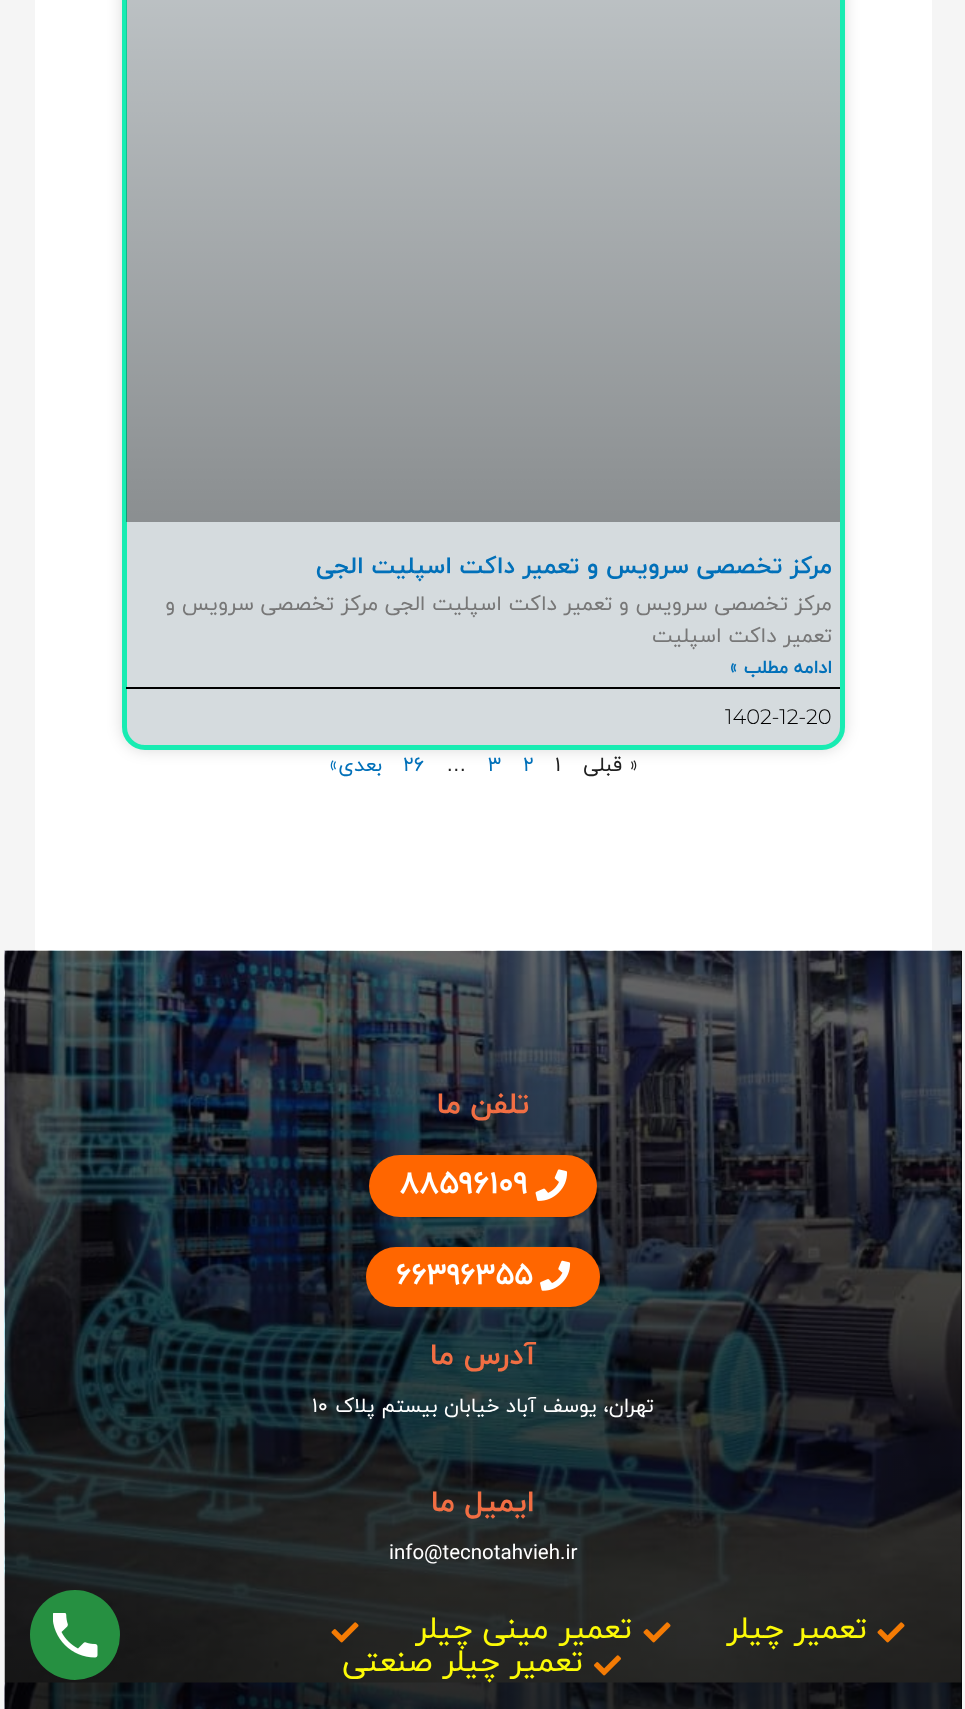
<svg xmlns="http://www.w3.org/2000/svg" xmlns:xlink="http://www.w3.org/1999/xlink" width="965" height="1709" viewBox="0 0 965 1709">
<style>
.cls-1{font:bold 24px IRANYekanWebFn;direction:rtl;fill:#0170b9}
.cls-2{font:21px IRANYekanWebFn;direction:rtl;fill:#777777}
.cls-3{font:bold 18px 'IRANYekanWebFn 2';direction:rtl;fill:#0170b9}
.cls-4{font:300 21px Montserrat;fill:#000000}
.cls-5{font:20.5px IRANYekanWebFn;direction:rtl;fill:#212121}
.cls-6{font:20.5px IRANYekanWebFn;fill:#212121}
.cls-7{font:20.5px IRANYekanWebFn;fill:#0170b9}
.cls-8{font:20.5px Liberation Sans;fill:#212121}
.cls-9{font:20.5px IRANYekanWebFn;direction:rtl;fill:#0170b9}
.cls-10{font:bold 30px IRANYekanWebFn;direction:rtl;fill:#f16e43}
.cls-11{font:bold 31.5px IRANYekanWebFn;fill:#ffffff}
.cls-12{font:bold 30px IRANYekanWebFn;fill:#ffffff}
.cls-13{font:20.5px IRANYekanWebFn;direction:rtl;fill:#ffffff}
.cls-14{font:20.5px IRANYekanWebFn;fill:#ffffff}
.cls-15{font:31.5px IRANYekanWebFn;direction:rtl;fill:#fcfa07}
</style>
<defs>
<linearGradient id="g1" gradientUnits="userSpaceOnUse" x1="483" y1="522" x2="483" y2="-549"><stop offset="0" stop-color="#000000" stop-opacity="0.35"/><stop offset="0.75" stop-color="#000000" stop-opacity="0"/></linearGradient>
<linearGradient id="g2" gradientUnits="userSpaceOnUse" x1="483" y1="951" x2="483" y2="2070"><stop offset="0" stop-color="#000000" stop-opacity="0.6"/><stop offset="1" stop-color="#000000" stop-opacity="0.95"/></linearGradient>
</defs>
<rect width="100%" height="100%" fill="#f5f5f5"/>
<rect fill="#ffffff" x="35" y="0" width="897" height="951"/>
<rect fill="#000000" fill-opacity="0.15" filter="blur(7.5px)" x="122" y="-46" width="723" height="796" rx="23"/>
<rect fill="#d5dbde" stroke="#18ecb2" stroke-width="5" x="124.5" y="-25.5" width="718" height="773" rx="20.5"/>
<rect fill="url(#g1)" x="126" y="0" width="714" height="522"/>
<rect fill="#000000" x="126" y="687" width="714" height="2"/>
<rect fill="#000000" x="961" y="951" width="1" height="758"/>
<image xlink:href="image0.png" x="4" y="950" width="958" height="759"/>
<rect fill="url(#g2)" x="5" y="951" width="957" height="758"/>
<rect fill="#ff6600" x="369" y="1155" width="228" height="62" rx="31"/>
<image xlink:href="image1.png" x="535" y="1169" width="33" height="32"/>
<rect fill="#ff6600" x="366" y="1247" width="234" height="60" rx="30"/>
<image xlink:href="image2.png" x="540" y="1260" width="31" height="31"/>
<image xlink:href="image3.png" x="877" y="1622" width="28" height="21"/>
<image xlink:href="image4.png" x="643" y="1622" width="28" height="21"/>
<image xlink:href="image5.png" x="331" y="1622" width="28" height="21"/>
<image xlink:href="image6.png" x="594" y="1655" width="27" height="21"/>
<circle fill="#269041" cx="75" cy="1635" r="45"/>
<image xlink:href="image7.png" x="53" y="1613" width="45" height="45"/>
<text class="cls-1" x="832" y="573">مرکز تخصصی سرویس و تعمیر داکت اسپلیت الجی</text>
<text class="cls-2"><tspan x="832" y="610">مرکز تخصصی سرویس و تعمیر داکت اسپلیت الجی مرکز تخصصی سرویس و</tspan><tspan x="832" y="642">تعمیر داکت اسپلیت</tspan></text>
<text class="cls-3" x="832" y="673">ادامه مطلب »</text>
<text class="cls-4" x="725" y="724">1402-12-20</text>
<text class="cls-5" x="638" y="771">« قبلی</text>
<text class="cls-6" x="555" y="771">1</text>
<text class="cls-7" x="523" y="771">2</text>
<text class="cls-7" x="488" y="771">3</text>
<text class="cls-8" x="446" y="771">…</text>
<text class="cls-7" x="403" y="771">26</text>
<text class="cls-9" x="382" y="771">بعدی»</text>
<text class="cls-10" x="529" y="1113">تلفن ما</text>
<text class="cls-11" x="400" y="1193">88596109</text>
<text class="cls-12" x="396" y="1284">66396355</text>
<text class="cls-10" x="536" y="1364">آدرس ما</text>
<text class="cls-13" x="654" y="1412">تهران، یوسف آباد خیابان بیستم پلاک</text>
<text class="cls-14" x="312" y="1412">10</text>
<text class="cls-10" x="535" y="1511">ایمیل ما</text>
<text class="cls-14" x="389" y="1559">info@tecnotahvieh.ir</text>
<text class="cls-15" x="867" y="1638">تعمیر چیلر</text>
<text class="cls-15" x="632" y="1638">تعمیر مینی چیلر</text>
<text class="cls-15" x="583" y="1671">تعمیر چیلر صنعتی</text>
</svg>
